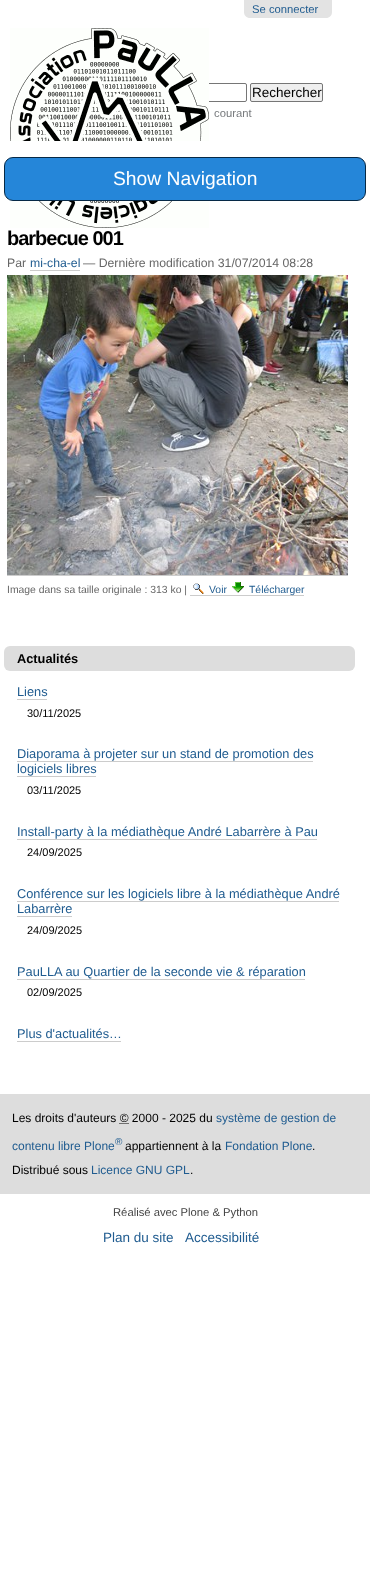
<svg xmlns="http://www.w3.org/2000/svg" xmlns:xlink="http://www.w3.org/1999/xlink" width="370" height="1585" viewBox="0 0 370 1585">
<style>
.cls-1{font:11.25px Liberation Sans;fill:#205c90}
.cls-2{font:13.5px Liberation Sans;fill:#000000}
.cls-3{font:11.25px Liberation Sans;fill:#76797c}
.cls-4{font:19.25px Liberation Sans;fill:#ffffff}
.cls-5{font:bold 20px Liberation Sans;letter-spacing:-1px;fill:#000000}
.cls-6{font:12.25px Liberation Sans;fill:#666666}
.cls-7{font:12.25px Liberation Sans;fill:#205c90}
.cls-8{font:10.4px Liberation Sans;fill:#666666}
.cls-9{font:10.4px Liberation Sans;fill:#205c90}
.cls-10{font:bold 12.8px Liberation Sans;fill:#000000}
.cls-11{font:12.8px Liberation Sans;fill:#205c90}
.cls-12{font:11px Liberation Sans;fill:#000000}
.cls-13{font:12px Liberation Sans;fill:#000000}
.cls-14{font:12px Liberation Sans;fill:#205c90}
.cls-15{font:10px Liberation Sans;fill:#205c90}
.cls-16{font:11.25px Liberation Sans;fill:#444444}
.cls-17{font:13.5px Liberation Sans;fill:#205c90}
</style>
<rect width="100%" height="100%" fill="#ffffff"/>
<path fill="#e3e3e3" d="M244 0H332V12C332 15.5 329.5 18 326 18H250C246.5 18 244 15.5 244 12Z"/>
<rect fill="none" stroke="#767676" x="63.5" y="83.5" width="183" height="18" rx="1.5"/>
<image xlink:href="image0.png" x="10" y="28" width="199" height="200"/>
<rect fill="#efefef" stroke="#767676" x="250.5" y="83.5" width="72" height="18" rx="1.5"/>
<rect fill="#ffffff" x="0" y="141" width="370" height="60" rx="6"/>
<rect fill="#2586d9" stroke="#062946" x="4.5" y="157.5" width="361" height="43" rx="8.5"/>
<rect fill="#cccccc" x="30" y="270" width="50" height="1"/>
<image xlink:href="image1.png" x="7" y="275" width="341" height="300"/>
<rect fill="#cccccc" x="7" y="575" width="341" height="1"/>
<image xlink:href="image2.png" x="193" y="583" width="11" height="11"/>
<image xlink:href="image3.png" x="232" y="582" width="12" height="11"/>
<rect fill="#cccccc" x="190" y="595" width="114" height="1"/>
<rect fill="#dddddd" x="4" y="646" width="351" height="25" rx="6"/>
<rect fill="#cccccc" x="17" y="699" width="30" height="1"/>
<rect fill="#cccccc" x="17" y="761" width="296" height="1"/>
<rect fill="#cccccc" x="17" y="776" width="79" height="1"/>
<rect fill="#cccccc" x="17" y="839" width="300" height="1"/>
<rect fill="#cccccc" x="17" y="901" width="322" height="1"/>
<rect fill="#cccccc" x="17" y="916" width="55" height="1"/>
<rect fill="#cccccc" x="17" y="979" width="288" height="1"/>
<rect fill="#cccccc" x="17" y="1041" width="104" height="1"/>
<rect fill="#dddddd" x="0" y="1094" width="370" height="100"/>
<path fill="none" stroke="#000000" stroke-dasharray="1 1" d="M119.5 1123.5H128.5"/>
<text class="cls-1" x="252" y="13">Se connecter</text>
<text class="cls-2" x="252" y="97">Rechercher</text>
<text class="cls-3" x="214" y="117">courant</text>
<text class="cls-4" x="113" y="185">Show Navigation</text>
<text class="cls-5" x="7" y="245">barbecue 001</text>
<text class="cls-6" x="7" y="267">Par</text>
<text class="cls-7" x="30" y="267">mi-cha-el</text>
<text class="cls-6" x="83" y="267">— Dernière modification 31/07/2014 08:28</text>
<text class="cls-8" x="7" y="593">Image dans sa taille originale : 313 ko |</text>
<text class="cls-9" x="209" y="593">Voir</text>
<text class="cls-9" x="249" y="593">Télécharger</text>
<text class="cls-10" x="17" y="663">Actualités</text>
<text class="cls-11" x="17" y="696">Liens</text>
<text class="cls-12" x="27" y="717">30/11/2025</text>
<text class="cls-11"><tspan x="17" y="758">Diaporama à projeter sur un stand de promotion des</tspan><tspan x="17" y="773">logiciels libres</tspan></text>
<text class="cls-12" x="27" y="794">03/11/2025</text>
<text class="cls-11" x="17" y="836">Install-party à la médiathèque André Labarrère à Pau</text>
<text class="cls-12" x="27" y="856">24/09/2025</text>
<text class="cls-11"><tspan x="17" y="898">Conférence sur les logiciels libre à la médiathèque André</tspan><tspan x="17" y="913">Labarrère</tspan></text>
<text class="cls-12" x="27" y="934">24/09/2025</text>
<text class="cls-11" x="17" y="976">PauLLA au Quartier de la seconde vie &amp; réparation</text>
<text class="cls-12" x="27" y="996">02/09/2025</text>
<text class="cls-11" x="17" y="1038">Plus d'actualités…</text>
<text class="cls-13" x="12" y="1122">Les droits d'auteurs © 2000 - 2025 du</text>
<text class="cls-14" x="216" y="1122">système de gestion de</text>
<text class="cls-14" x="12" y="1150">contenu libre Plone</text>
<text class="cls-15" x="115" y="1145">®</text>
<text class="cls-13" x="125" y="1150">appartiennent à la</text>
<text class="cls-14" x="225" y="1150">Fondation Plone</text>
<text class="cls-13" x="312" y="1150">.</text>
<text class="cls-13" x="12" y="1174">Distribué sous</text>
<text class="cls-14" x="91" y="1174">Licence GNU GPL</text>
<text class="cls-13" x="190" y="1174">.</text>
<text class="cls-16" x="113" y="1216">Réalisé avec Plone &amp; Python</text>
<text class="cls-17" x="103" y="1242">Plan du site</text>
<text class="cls-17" x="185" y="1242">Accessibilité</text>
</svg>
